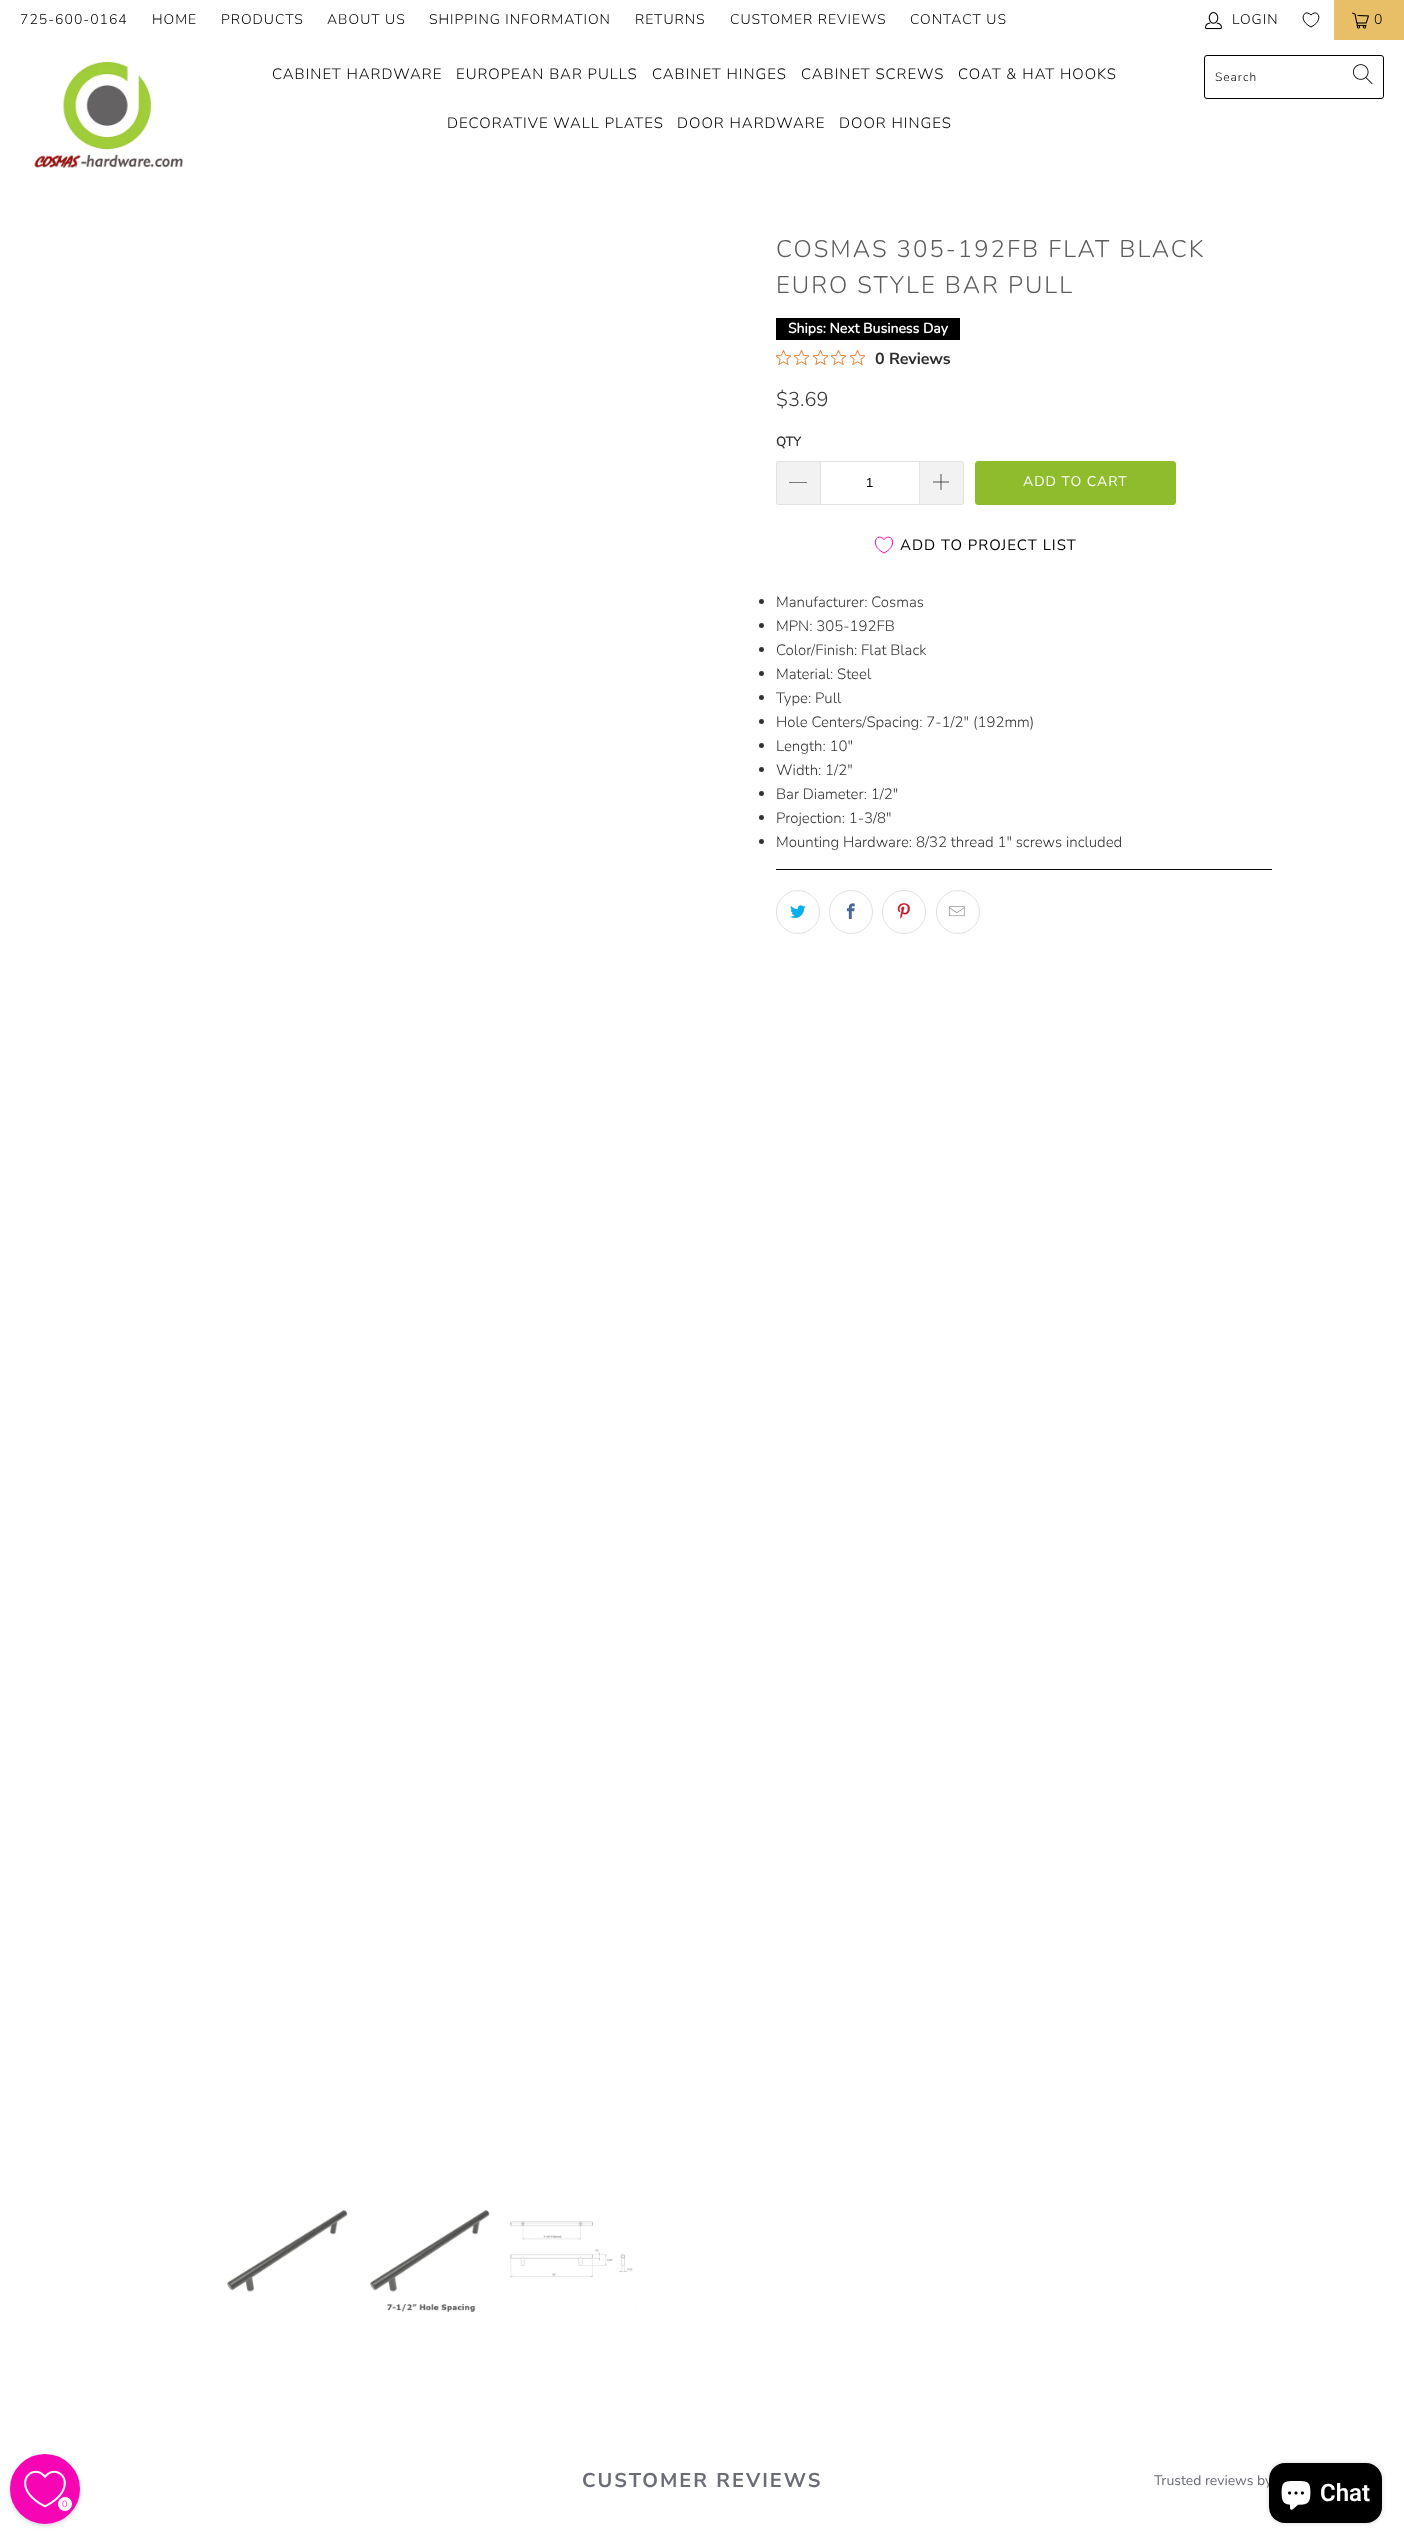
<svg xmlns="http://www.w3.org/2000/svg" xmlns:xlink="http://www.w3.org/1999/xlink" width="1404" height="2544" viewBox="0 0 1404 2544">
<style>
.cls-1{font:300 14px Nunito;letter-spacing:1px;fill:#000000}
.cls-2{font:300 15px Nunito;letter-spacing:1px;fill:#000000}
.cls-3{font:300 12px Nunito;letter-spacing:1px;fill:#000000}
.cls-4{font:300 24px Nunito;letter-spacing:2px;fill:#5c5c5c}
.cls-5{font:bold 14px Nunito;fill:#ffffff}
.cls-6{font:200 16px Nunito Sans;fill:#2c2c2c}
.cls-7{font:300 20px Nunito;fill:#333333}
.cls-8{font:bold 13px Nunito;fill:#333333}
.cls-9{font:13px Liberation Sans;fill:#000000}
.cls-10{font:14px Nunito;letter-spacing:1px;fill:#ffffff}
.cls-11{font:15px Nunito;letter-spacing:1px;fill:#000000}
.cls-12{font:300 15px Nunito;fill:#333333}
.cls-13{font:200 20px Nunito Sans;letter-spacing:2px;fill:#6b6d76}
.cls-14{font:200 14px 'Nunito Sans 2';fill:#6b6d76}
.cls-15{font:600 24px Roboto;fill:#ffffff}
.cls-16{font:300 9px Nunito;fill:#f705b5}
</style>
<rect width="100%" height="100%" fill="#ffffff"/>
<image xlink:href="image0.png" x="1205" y="12" width="17" height="18"/>
<path fill="none" stroke="#000000" d="M1311 27C1297.5 20.5 1304 8 1311 15C1318 8 1324.5 20.5 1311 27Z"/>
<rect fill="#e8bf67" x="1334" y="0" width="70" height="40"/>
<image xlink:href="image1.png" x="1352" y="12" width="17" height="17"/>
<image xlink:href="image2.png" x="34" y="62" width="150" height="107"/>
<rect fill="none" stroke="#000000" x="1204.5" y="55.5" width="179" height="43" rx="2.5"/>
<image xlink:href="image3.png" x="1353" y="64" width="20" height="21"/>
<rect fill="#000000" x="776" y="318" width="184" height="22"/>
<image xlink:href="image4.png" x="776" y="350" width="15" height="15"/>
<image xlink:href="image4.png" x="794" y="350" width="15" height="15"/>
<image xlink:href="image4.png" x="813" y="350" width="15" height="15"/>
<image xlink:href="image4.png" x="831" y="350" width="15" height="15"/>
<image xlink:href="image4.png" x="850" y="350" width="15" height="15"/>
<path fill="#f2f2f2" d="M779 461H820V505H779C777.5 505 776 503.5 776 502V464C776 462.5 777.5 461 779 461Z"/>
<path fill="#e2e2e2" fill-rule="evenodd" d="M779 461H820V505H779C777 505 776 504 776 502V464C776 462 777 461 779 461ZM779 462H820V504H779C778 504 777 503 777 502V464C777 463 778 462 779 462Z"/>
<path fill="#000000" d="M789 482H807V482.5H789Z"/>
<rect fill="none" stroke="#e2e2e2" x="820.5" y="461.5" width="99" height="43"/>
<path fill="#f2f2f2" d="M920 461H961C962.5 461 964 462.5 964 464V502C964 503.5 962.5 505 961 505H920Z"/>
<path fill="#e2e2e2" fill-rule="evenodd" d="M920 461H961C963 461 964 462 964 464V502C964 504 963 505 961 505H920ZM920 462H961C962 462 963 463 963 464V502C963 503 962 504 961 504H920Z"/>
<image xlink:href="image5.png" x="933" y="474" width="16" height="16"/>
<rect fill="#8fbc2c" stroke="#8fbc2c" x="975.5" y="461.5" width="200" height="43" rx="2.5"/>
<path fill="none" stroke="#f705b5" d="M884 553C869 545.5 876.5 531.5 884 539.5C891.5 531.5 899 545.5 884 553Z"/>
<circle fill="#333333" cx="761.5" cy="601.5" r="2.5"/>
<circle fill="#333333" cx="761.5" cy="625.5" r="2.5"/>
<circle fill="#333333" cx="761.5" cy="649.5" r="2.5"/>
<circle fill="#333333" cx="761.5" cy="673.5" r="2.5"/>
<circle fill="#333333" cx="761.5" cy="697.5" r="2.5"/>
<circle fill="#333333" cx="761.5" cy="721.5" r="2.5"/>
<circle fill="#333333" cx="761.5" cy="745.5" r="2.5"/>
<circle fill="#333333" cx="761.5" cy="769.5" r="2.5"/>
<circle fill="#333333" cx="761.5" cy="793.5" r="2.5"/>
<circle fill="#333333" cx="761.5" cy="817.5" r="2.5"/>
<circle fill="#333333" cx="761.5" cy="841.5" r="2.5"/>
<rect fill="#070707" x="776" y="869" width="496" height="1"/>
<circle fill="none" stroke="#e2e2e2" cx="798" cy="912" r="21.5"/>
<image xlink:href="image6.png" x="790" y="905" width="16" height="13"/>
<circle fill="none" stroke="#e2e2e2" cx="851" cy="912" r="21.5"/>
<image xlink:href="image7.png" x="846" y="903" width="9" height="16"/>
<circle fill="none" stroke="#e2e2e2" cx="904" cy="912" r="21.5"/>
<image xlink:href="image8.png" x="897" y="903" width="13" height="16"/>
<circle fill="none" stroke="#e2e2e2" cx="958" cy="912" r="21.5"/>
<image xlink:href="image9.png" x="949" y="906" width="16" height="11"/>
<image xlink:href="image10.png" x="227" y="2209" width="121" height="83"/>
<image xlink:href="image11.png" x="370" y="2209" width="120" height="103"/>
<image xlink:href="image12.png" x="509" y="2220" width="127" height="92"/>
<rect fill="#000000" fill-opacity="0.15" filter="blur(2.5px)" x="1269" y="2463" width="113" height="60" rx="16"/>
<rect fill="#000000" fill-opacity="0.15" filter="blur(2px)" x="10" y="2456" width="70" height="70" rx="35"/>
<circle fill="#f705b5" stroke="#f705b5" stroke-width="2" cx="45" cy="2489" r="34"/>
<image xlink:href="image14.png" x="24" y="2470" width="42" height="38"/>
<circle fill="#ffffff" stroke="#f705b5" cx="65" cy="2504" r="7.5"/>
<text class="cls-1" x="20" y="24">725-600-0164</text>
<text class="cls-1" x="152" y="24">HOME</text>
<text class="cls-1" x="221" y="24">PRODUCTS</text>
<text class="cls-1" x="327" y="24">ABOUT US</text>
<text class="cls-1" x="429" y="24">SHIPPING INFORMATION</text>
<text class="cls-1" x="635" y="24">RETURNS</text>
<text class="cls-1" x="730" y="24">CUSTOMER REVIEWS</text>
<text class="cls-1" x="910" y="24">CONTACT US</text>
<text class="cls-1" x="1232" y="24">LOGIN</text>
<text class="cls-1" x="1374" y="24">0</text>
<text class="cls-2" x="272" y="79">CABINET HARDWARE</text>
<text class="cls-2" x="456" y="79">EUROPEAN BAR PULLS</text>
<text class="cls-2" x="652" y="79">CABINET HINGES</text>
<text class="cls-2" x="801" y="79">CABINET SCREWS</text>
<text class="cls-2" x="958" y="79">COAT &amp; HAT HOOKS</text>
<text class="cls-2" x="447" y="128">DECORATIVE WALL PLATES</text>
<text class="cls-2" x="677" y="128">DOOR HARDWARE</text>
<text class="cls-2" x="839" y="128">DOOR HINGES</text>
<text class="cls-3" x="1215" y="81">Search</text>
<text class="cls-4"><tspan x="776" y="257">COSMAS 305-192FB FLAT BLACK</tspan><tspan x="776" y="293">EURO STYLE BAR PULL</tspan></text>
<text class="cls-5" x="788" y="333">Ships: Next Business Day</text>
<text class="cls-6" x="875" y="364">0 Reviews</text>
<text class="cls-7" x="776" y="406">$3.69</text>
<text class="cls-8" x="776" y="446">QTY</text>
<text class="cls-9" x="866" y="487">1</text>
<text class="cls-10" x="1023" y="486">ADD TO CART</text>
<text class="cls-11" x="900" y="550">ADD TO PROJECT LIST</text>
<text class="cls-12"><tspan x="776" y="607">Manufacturer: Cosmas</tspan><tspan x="776" y="631">MPN: 305-192FB</tspan><tspan x="776" y="655">Color/Finish: Flat Black</tspan><tspan x="776" y="679">Material: Steel</tspan><tspan x="776" y="703">Type: Pull</tspan><tspan x="776" y="727">Hole Centers/Spacing: 7-1/2" (192mm)</tspan><tspan x="776" y="751">Length: 10"</tspan><tspan x="776" y="775">Width: 1/2"</tspan><tspan x="776" y="799">Bar Diameter: 1/2"</tspan><tspan x="776" y="823">Projection: 1-3/8"</tspan><tspan x="776" y="847">Mounting Hardware: 8/32 thread 1" screws included</tspan></text>
<text class="cls-13" x="582" y="2487">CUSTOMER REVIEWS</text>
<text class="cls-14" x="1154" y="2485">Trusted reviews by</text>
<rect fill="#000000" x="1269" y="2463" width="113" height="60" rx="16"/>
<image xlink:href="image13.png" x="1281" y="2481" width="30" height="29"/>
<text class="cls-15" x="1320" y="2501">Chat</text>
<text class="cls-16" x="62" y="2507">0</text>
</svg>
